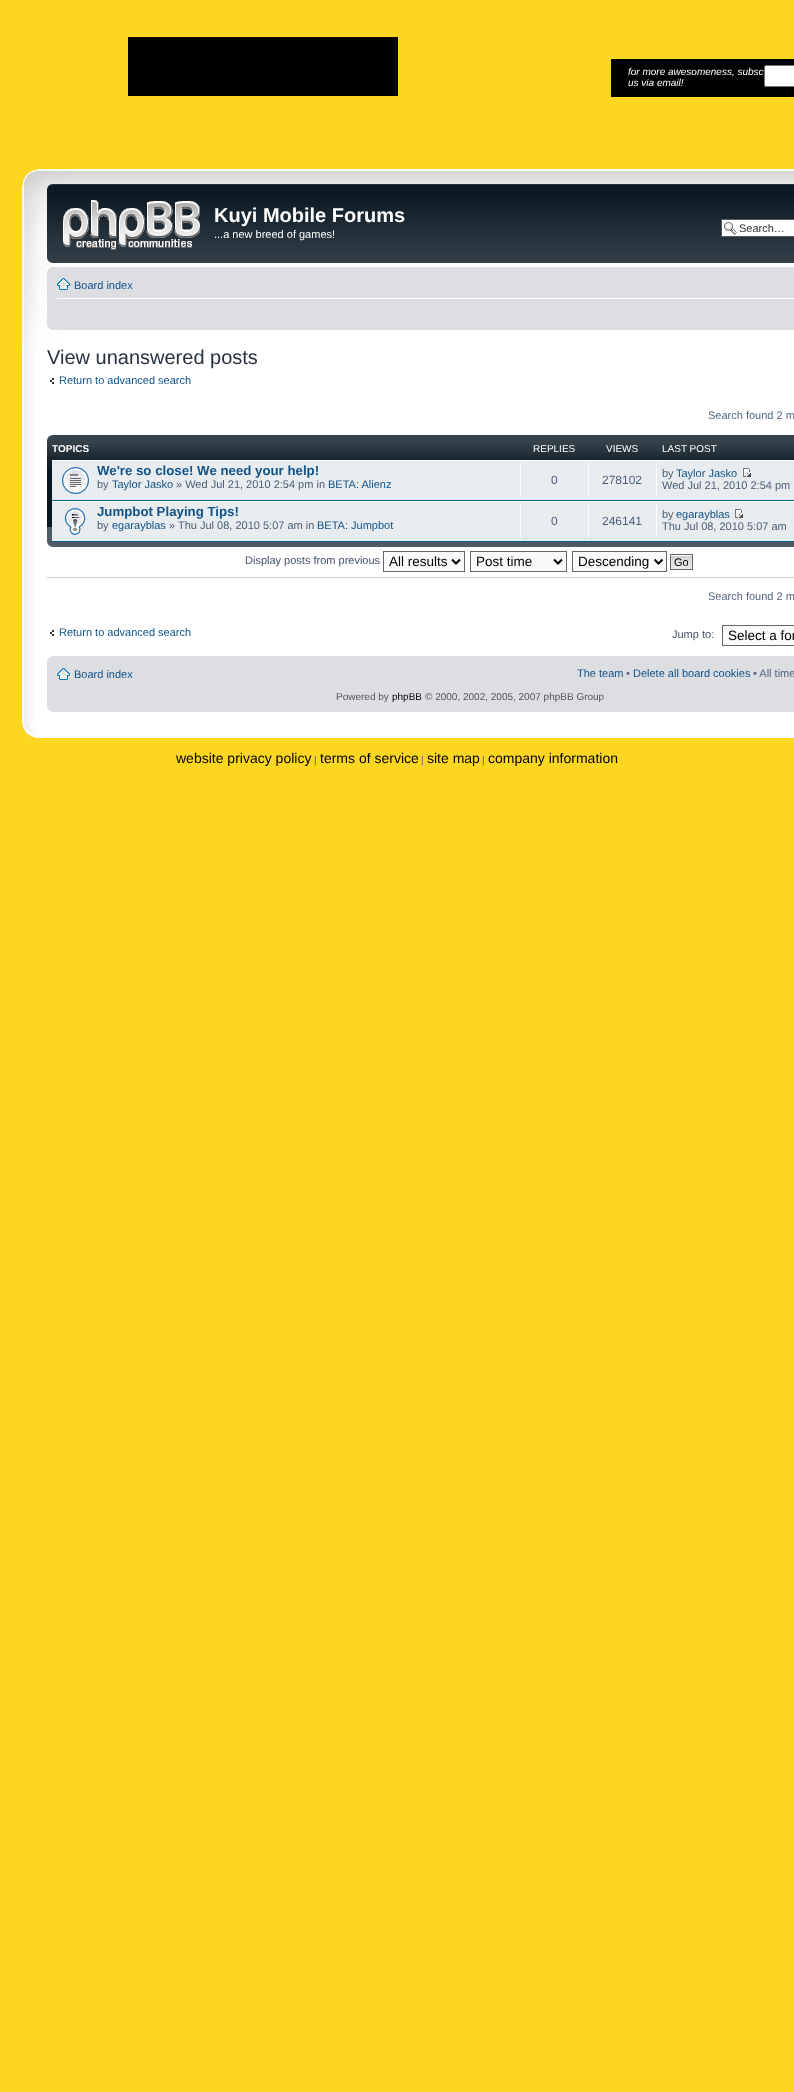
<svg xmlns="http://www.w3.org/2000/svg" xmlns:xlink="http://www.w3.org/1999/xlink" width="794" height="2092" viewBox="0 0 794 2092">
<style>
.cls-1{font:italic 10px Liberation Sans;fill:#ffffff}
.cls-2{font:bold 20px Liberation Sans;fill:#ffffff}
.cls-3{font:11px Liberation Sans;fill:#ffffff}
.cls-4{font:11px Liberation Sans;fill:#333333}
.cls-5{font:11px Liberation Sans;fill:#105289}
.cls-6{font:20px Liberation Sans;fill:#28313f}
.cls-7{font:11px Liberation Sans;fill:#536482}
.cls-8{font:bold 10px Liberation Sans;fill:#ffffff}
.cls-9{font:10px Liberation Sans;fill:#ffffff}
.cls-10{font:bold 13.25px Liberation Sans;fill:#105289}
.cls-11{font:11px Liberation Sans;fill:#4c5d77}
.cls-12{font:12px Liberation Sans;fill:#4c5d77}
.cls-13{font:11px Liberation Sans;fill:#425067}
.cls-14{font:13.5px Liberation Sans;fill:#000000}
.cls-15{font:11px Liberation Sans;fill:#000000}
.cls-16{font:10px Liberation Sans;fill:#555555}
.cls-17{font:10px Liberation Sans;fill:#000000}
.cls-18{font:14px Liberation Sans;fill:#000000}
.cls-19{font:10px Liberation Sans;fill:#536482}
</style>
<rect width="100%" height="100%" fill="#fdd621"/>
<rect fill="#000000" x="128" y="37" width="270" height="59"/>
<rect fill="#000000" x="611" y="59" width="183" height="38"/>
<rect fill="#ffffff" stroke="#767676" x="764.5" y="65.5" width="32" height="21" rx="1.5"/>
<rect fill="#ffffff" x="34" y="330" width="760" height="401"/>
<image xlink:href="image0.png" x="20" y="350" width="14" height="372"/>
<image xlink:href="image1.png" x="20" y="167" width="774" height="100"/>
<image xlink:href="image2.png" x="20" y="169" width="50" height="181"/>
<image xlink:href="image3.png" x="47" y="184" width="747" height="79"/>
<image xlink:href="image4.png" x="47" y="184" width="5" height="5"/>
<image xlink:href="image5.png" x="63" y="200" width="137" height="50"/>
<rect fill="#ffffff" x="722" y="220" width="72" height="16"/>
<image xlink:href="image6.png" x="724" y="222" width="13" height="13"/>
<rect fill="none" stroke="#525e67" x="721.5" y="219.5" width="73" height="17"/>
<image xlink:href="image7.png" x="47" y="258" width="5" height="5"/>
<rect fill="#dcdee2" x="47" y="267" width="747" height="63"/>
<image xlink:href="image8.png" x="47" y="267" width="5" height="5"/>
<rect fill="#ffffff" x="57" y="298" width="737" height="1"/>
<image xlink:href="image9.png" x="57" y="278" width="13" height="12"/>
<image xlink:href="image10.png" x="47" y="325" width="5" height="5"/>
<image xlink:href="image11.png" x="50" y="378" width="4" height="6"/>
<rect fill="#505c65" x="47" y="527" width="747" height="20"/>
<image xlink:href="image12.png" x="47" y="435" width="747" height="92"/>
<image xlink:href="image13.png" x="47" y="435" width="6" height="5"/>
<rect fill="#e8ecee" x="52" y="461" width="742" height="39"/>
<rect fill="#ffffff" x="52" y="460" width="742" height="1"/>
<rect fill="#00608f" x="52" y="500" width="742" height="1"/>
<image xlink:href="image14.png" x="62" y="467" width="27" height="27"/>
<rect fill="#ffffff" x="520" y="463" width="1" height="34"/>
<rect fill="#ffffff" x="588" y="463" width="1" height="34"/>
<rect fill="#ffffff" x="656" y="463" width="1" height="32"/>
<image xlink:href="image15.png" x="743" y="468" width="8" height="9"/>
<rect fill="#e8ecee" x="52" y="502" width="742" height="39"/>
<rect fill="#ffffff" x="52" y="501" width="742" height="1"/>
<rect fill="#00608f" x="52" y="541" width="742" height="1"/>
<image xlink:href="image16.png" x="64" y="508" width="22" height="27"/>
<rect fill="#ffffff" x="520" y="504" width="1" height="34"/>
<rect fill="#ffffff" x="588" y="504" width="1" height="34"/>
<rect fill="#ffffff" x="656" y="504" width="1" height="32"/>
<image xlink:href="image15.png" x="735" y="509" width="8" height="9"/>
<image xlink:href="image17.png" x="47" y="542" width="5" height="5"/>
<rect fill="#fafafa" stroke="#666666" x="383.5" y="551.5" width="81" height="20"/>
<path fill="none" stroke="#000000" stroke-width="2" d="M452 559.5L456 563.5L460 559.5"/>
<rect fill="#fafafa" stroke="#666666" x="470.5" y="551.5" width="96" height="20"/>
<path fill="none" stroke="#000000" stroke-width="2" d="M554 559.5L558 563.5L562 559.5"/>
<rect fill="#fafafa" stroke="#666666" x="572.5" y="551.5" width="94" height="20"/>
<path fill="none" stroke="#000000" stroke-width="2" d="M654.5 559.5L658.5 563.5L662.5 559.5"/>
<image xlink:href="image18.png" x="671" y="555" width="21" height="14"/>
<rect fill="none" stroke="#666666" x="670.5" y="554.5" width="22" height="15"/>
<rect fill="#cccccc" x="47" y="577" width="747" height="1"/>
<image xlink:href="image11.png" x="50" y="630" width="4" height="6"/>
<rect fill="#fafafa" stroke="#666666" x="722.5" y="625.5" width="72" height="20"/>
<rect fill="#dcdee2" x="47" y="656" width="747" height="56"/>
<image xlink:href="image8.png" x="47" y="656" width="5" height="5"/>
<image xlink:href="image9.png" x="57" y="668" width="13" height="12"/>
<image xlink:href="image10.png" x="47" y="707" width="5" height="5"/>
<image xlink:href="image19.png" x="20" y="731" width="774" height="9"/>
<image xlink:href="image20.png" x="20" y="722" width="20" height="16"/>
<text class="cls-1"><tspan x="628" y="75">for more awesomeness, subsc</tspan><tspan x="628" y="86">us via email!</tspan></text>
<text class="cls-2" x="214" y="222">Kuyi Mobile Forums</text>
<text class="cls-3" x="214" y="238">...a new breed of games!</text>
<text class="cls-4" x="739" y="232">Search…</text>
<text class="cls-5" x="74" y="289">Board index</text>
<text class="cls-6" x="47" y="364">View unanswered posts</text>
<text class="cls-5" x="59" y="384">Return to advanced search</text>
<text class="cls-7" x="708" y="419">Search found 2 m</text>
<text class="cls-8" x="52" y="452">TOPICS</text>
<text class="cls-9" x="533" y="452">REPLIES</text>
<text class="cls-9" x="606" y="452">VIEWS</text>
<text class="cls-9" x="662" y="452">LAST POST</text>
<text class="cls-10" x="97" y="475">We're so close! We need your help!</text>
<text class="cls-11" x="97" y="488">by</text>
<text class="cls-5" x="112" y="488">Taylor Jasko</text>
<text class="cls-11" x="176" y="488">» Wed Jul 21, 2010 2:54 pm in</text>
<text class="cls-5" x="328" y="488">BETA: Alienz</text>
<text class="cls-12" x="551" y="484">0</text>
<text class="cls-12" x="602" y="484">278102</text>
<text class="cls-11" x="662" y="477">by</text>
<text class="cls-5" x="676" y="477">Taylor Jasko</text>
<text class="cls-11" x="662" y="489">Wed Jul 21, 2010 2:54 pm</text>
<text class="cls-10" x="97" y="516">Jumpbot Playing Tips!</text>
<text class="cls-11" x="97" y="529">by</text>
<text class="cls-5" x="112" y="529">egarayblas</text>
<text class="cls-11" x="169" y="529">» Thu Jul 08, 2010 5:07 am in</text>
<text class="cls-5" x="317" y="529">BETA: Jumpbot</text>
<text class="cls-12" x="551" y="525">0</text>
<text class="cls-12" x="602" y="525">246141</text>
<text class="cls-11" x="662" y="518">by</text>
<text class="cls-5" x="676" y="518">egarayblas</text>
<text class="cls-11" x="662" y="530">Thu Jul 08, 2010 5:07 am</text>
<text class="cls-13" x="245" y="564">Display posts from previous</text>
<text class="cls-14" x="389" y="566">All results</text>
<text class="cls-14" x="476" y="566">Post time</text>
<text class="cls-14" x="578" y="566">Descending</text>
<text class="cls-15" x="674" y="566">Go</text>
<text class="cls-7" x="708" y="600">Search found 2 m</text>
<text class="cls-5" x="59" y="636">Return to advanced search</text>
<text class="cls-13" x="672" y="638">Jump to:</text>
<text class="cls-14" x="728" y="640">Select a for</text>
<text class="cls-5" x="74" y="678">Board index</text>
<text class="cls-5" x="577" y="677">The team</text>
<text class="cls-7" x="626" y="677">•</text>
<text class="cls-5" x="633" y="677">Delete all board cookies</text>
<text class="cls-7" x="753" y="677">• All time</text>
<text class="cls-16" x="336" y="700">Powered by</text>
<text class="cls-17" x="392" y="700">phpBB</text>
<text class="cls-16" x="425" y="700">© 2000, 2002, 2005, 2007 phpBB Group</text>
<text class="cls-18" x="176" y="763">website privacy policy</text>
<text class="cls-19" x="314" y="763">|</text>
<text class="cls-18" x="320" y="763">terms of service</text>
<text class="cls-19" x="421" y="763">|</text>
<text class="cls-18" x="427" y="763">site map</text>
<text class="cls-19" x="482" y="763">|</text>
<text class="cls-18" x="488" y="763">company information</text>
</svg>
